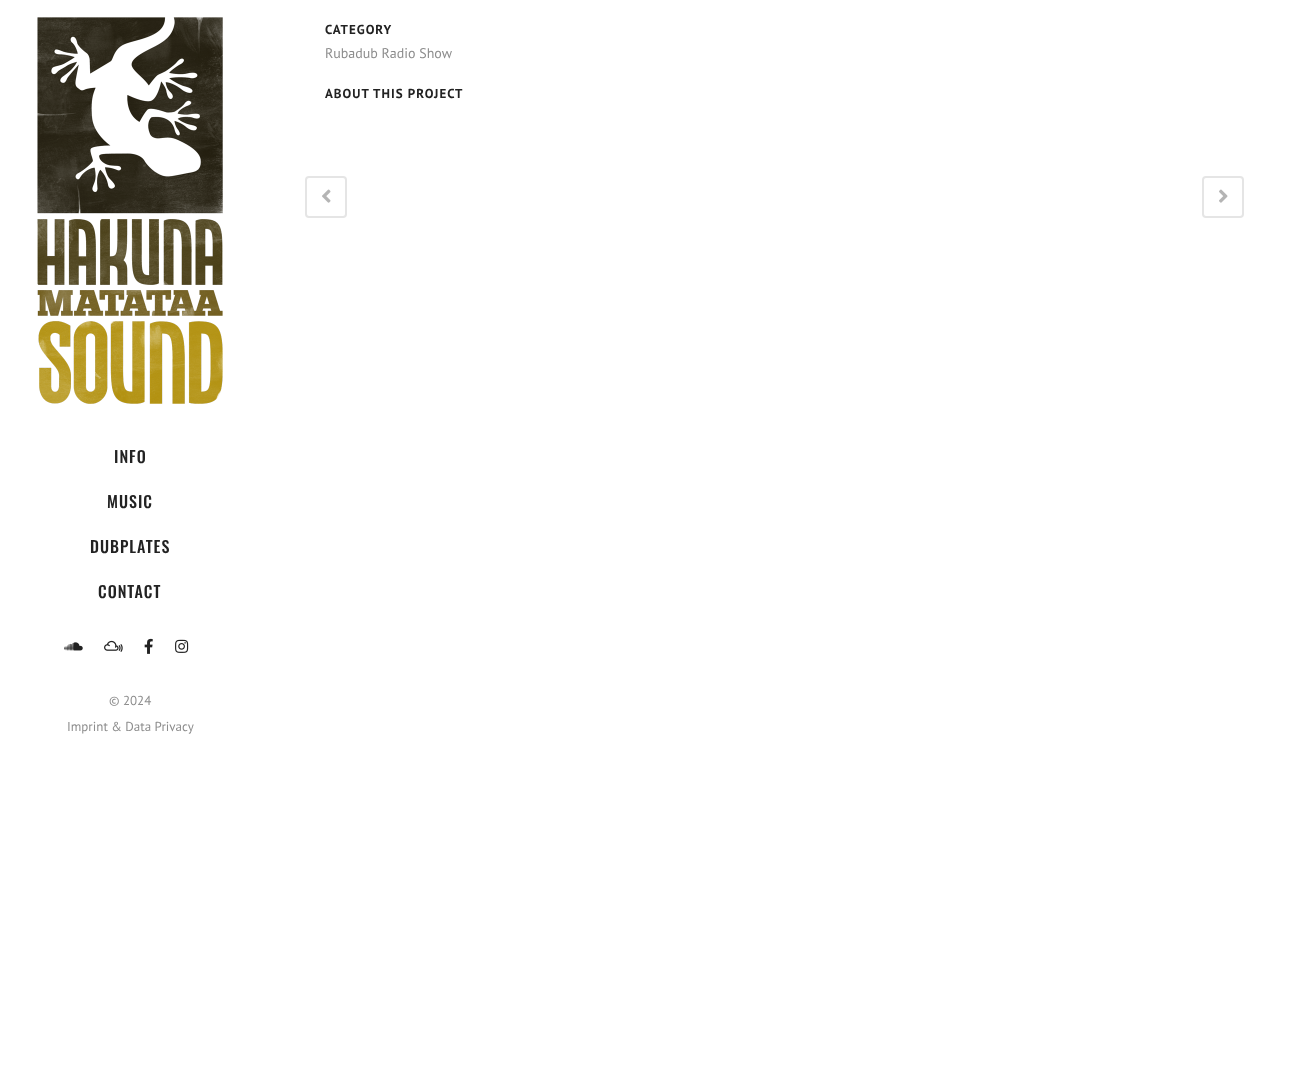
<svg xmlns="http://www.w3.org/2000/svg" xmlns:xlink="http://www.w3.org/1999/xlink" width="1300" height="1073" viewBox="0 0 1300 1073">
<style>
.cls-1{font:bold 13px PT Sans;letter-spacing:1px;fill:#222222}
.cls-2{font:14px PT Sans;fill:#8d8d8d}
.cls-3{font:500 16px Oswald;letter-spacing:1px;fill:#222222}
.cls-4{font:13px PT Sans;fill:#8d8d8d}
</style>
<rect width="100%" height="100%" fill="#ffffff"/>
<rect fill="none" stroke="#e5e5e5" stroke-width="2" x="306" y="177" width="40" height="40" rx="3"/>
<image xlink:href="image0.png" x="322" y="189" width="9" height="14"/>
<rect fill="none" stroke="#e5e5e5" stroke-width="2" x="1203" y="177" width="40" height="40" rx="3"/>
<image xlink:href="image1.png" x="1219" y="189" width="9" height="14"/>
<image xlink:href="image2.png" x="37" y="17" width="186" height="387"/>
<image xlink:href="image3.png" x="64" y="642" width="19" height="9"/>
<image xlink:href="image4.png" x="104" y="640" width="19" height="12"/>
<image xlink:href="image5.png" x="144" y="638" width="9" height="16"/>
<image xlink:href="image6.png" x="175" y="639" width="14" height="14"/>
<text class="cls-1" x="325" y="34">CATEGORY</text>
<text class="cls-2" x="325" y="58">Rubadub Radio Show</text>
<text class="cls-1" x="325" y="98">ABOUT THIS PROJECT</text>
<text class="cls-3" x="114" y="463">INFO</text>
<text class="cls-3" x="107" y="508">MUSIC</text>
<text class="cls-3" x="90" y="553">DUBPLATES</text>
<text class="cls-3" x="98" y="598">CONTACT</text>
<text class="cls-4" x="109" y="705">© 2024</text>
<text class="cls-4" x="67" y="731">Imprint &amp; Data Privacy</text>
</svg>
